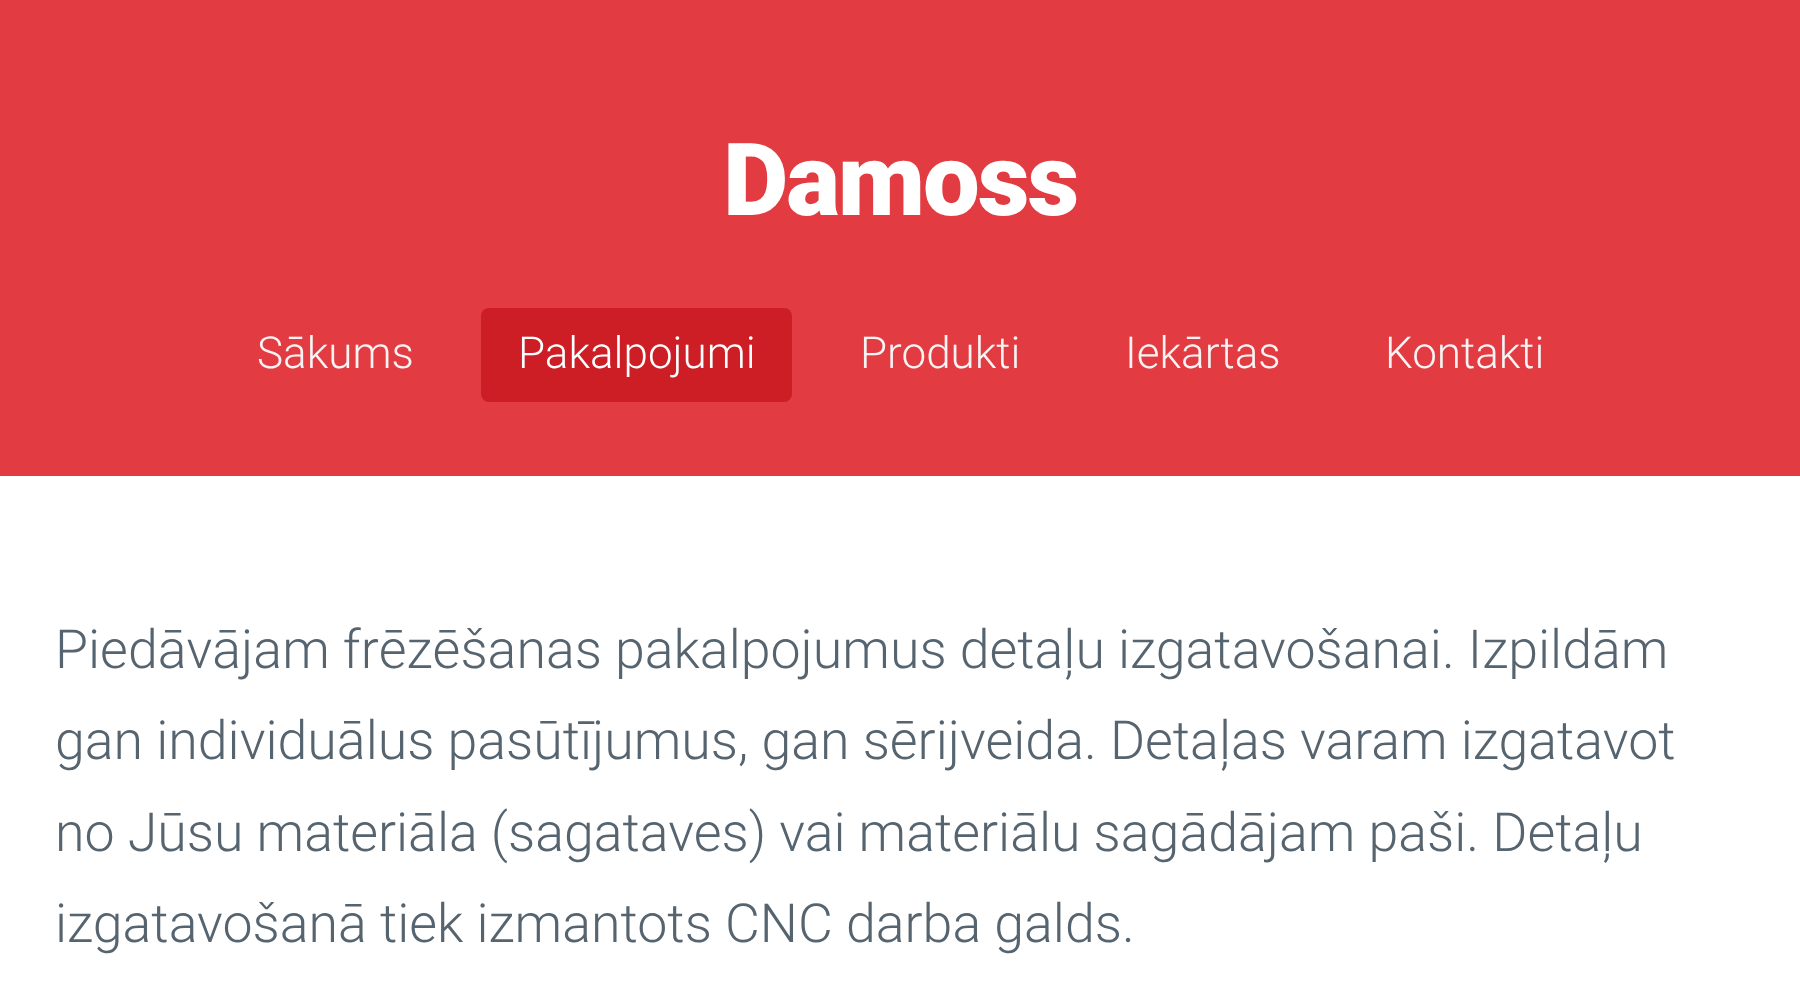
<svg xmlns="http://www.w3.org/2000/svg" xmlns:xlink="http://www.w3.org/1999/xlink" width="1800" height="999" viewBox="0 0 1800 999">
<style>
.cls-1{font:900 101px Roboto;letter-spacing:-2px;fill:#ffffff}
.cls-2{font:300 44px Roboto;fill:#f8f4f4}
.cls-3{font:300 44px Roboto;fill:#ffffff}
.cls-4{font:300 53.7px Roboto;fill:#56646f}
</style>
<rect width="100%" height="100%" fill="#ffffff"/>
<rect fill="#e23c42" x="0" y="0" width="1800" height="476"/>
<rect fill="#cc1e24" x="481" y="308" width="311" height="94" rx="8"/>
<text class="cls-1" x="723" y="215">Damoss</text>
<text class="cls-2" x="257" y="368">Sākums</text>
<text class="cls-3" x="518" y="368">Pakalpojumi</text>
<text class="cls-2" x="860" y="368">Produkti</text>
<text class="cls-2" x="1125" y="368">Iekārtas</text>
<text class="cls-2" x="1385" y="368">Kontakti</text>
<text class="cls-4"><tspan x="55" y="668">Piedāvājam frēzēšanas pakalpojumus detaļu izgatavošanai. Izpildām</tspan><tspan x="55" y="759">gan individuālus pasūtījumus, gan sērijveida. Detaļas varam izgatavot</tspan><tspan x="55" y="851">no Jūsu materiāla (sagataves) vai materiālu sagādājam paši. Detaļu</tspan><tspan x="55" y="942">izgatavošanā tiek izmantots CNC darba galds.</tspan></text>
</svg>
